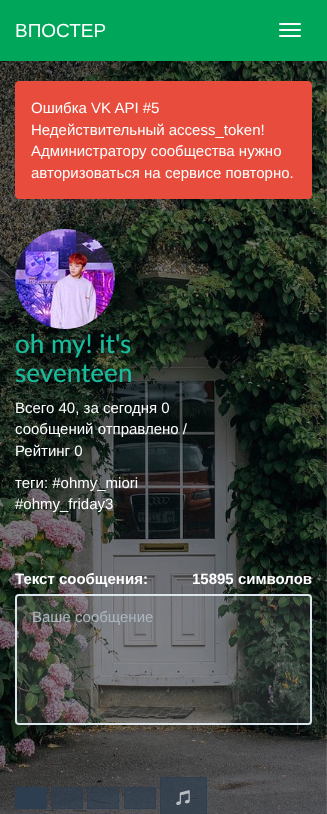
<svg xmlns="http://www.w3.org/2000/svg" xmlns:xlink="http://www.w3.org/1999/xlink" width="327" height="814" viewBox="0 0 327 814">
<style>
.cls-1{font:19px Liberation Sans;fill:#ffffff}
.cls-2{font:15px Liberation Sans;fill:#ffffff}
.cls-3{font:500 26px Lato;fill:#18bc9c}
.cls-4{font:bold 15px Liberation Sans;fill:#ffffff}
.cls-5{font:15px Liberation Sans;fill:#acb6c0}
</style>
<rect width="100%" height="100%" fill="#ffffff"/>
<image xlink:href="image0.png" x="0" y="61" width="327" height="753"/>
<rect fill="#00a65a" x="0" y="0" width="327" height="61"/>
<rect fill="#ffffff" x="279" y="23" width="22" height="2" rx="1"/>
<rect fill="#ffffff" x="279" y="29" width="22" height="2" rx="1"/>
<rect fill="#ffffff" x="279" y="35" width="22" height="2" rx="1"/>
<rect fill="#e74c3c" stroke="#e74c3c" x="15.5" y="81.5" width="296" height="117" rx="3.5"/>
<image xlink:href="image1.png" x="15" y="229" width="100" height="100"/>
<rect fill="#ffffff" fill-opacity="0.1" stroke="#dce4ec" stroke-width="2" x="16" y="595" width="295" height="129" rx="3"/>
<rect fill="#2c3e50" x="15" y="787" width="32" height="22"/>
<rect fill="#2c3e50" fill-opacity="0.65" x="51" y="787" width="32" height="22"/>
<rect fill="none" stroke="#2c3e50" stroke-opacity="0.65" x="51.5" y="787.5" width="31" height="21"/>
<rect fill="#2c3e50" fill-opacity="0.65" x="87" y="787" width="32" height="22"/>
<rect fill="none" stroke="#2c3e50" stroke-opacity="0.65" x="87.5" y="787.5" width="31" height="21"/>
<rect fill="#2c3e50" fill-opacity="0.65" x="124" y="787" width="32" height="22"/>
<rect fill="none" stroke="#2c3e50" stroke-opacity="0.65" x="124.5" y="787.5" width="31" height="21"/>
<rect fill="#2c3e50" fill-opacity="0.65" x="160" y="777" width="47" height="37"/>
<rect fill="none" stroke="#2c3e50" stroke-opacity="0.65" x="160.5" y="777.5" width="46" height="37"/>
<image xlink:href="image2.png" x="176" y="790" width="14" height="15"/>
<text class="cls-1" x="15" y="37">ВПОСТЕР</text>
<text class="cls-2"><tspan x="31" y="113">Ошибка VK API #5</tspan><tspan x="31" y="135">Недействительный access_token!</tspan><tspan x="31" y="156">Администратору сообщества нужно</tspan><tspan x="31" y="178">авторизоваться на сервисе повторно.</tspan></text>
<text class="cls-3"><tspan x="15" y="353">oh my! it's</tspan><tspan x="15" y="382">seventeen</tspan></text>
<text class="cls-2"><tspan x="15" y="413">Всего 40, за сегодня 0</tspan><tspan x="15" y="434">сообщений отправлено /</tspan><tspan x="15" y="456">Рейтинг 0</tspan></text>
<text class="cls-2"><tspan x="15" y="488">теги: #ohmy_miori</tspan><tspan x="15" y="509">#ohmy_friday3</tspan></text>
<text class="cls-4" x="15" y="584">Текст сообщения:</text>
<text class="cls-4" x="192" y="584">15895 символов</text>
<text class="cls-5" x="32" y="622">Ваше сообщение</text>
</svg>
